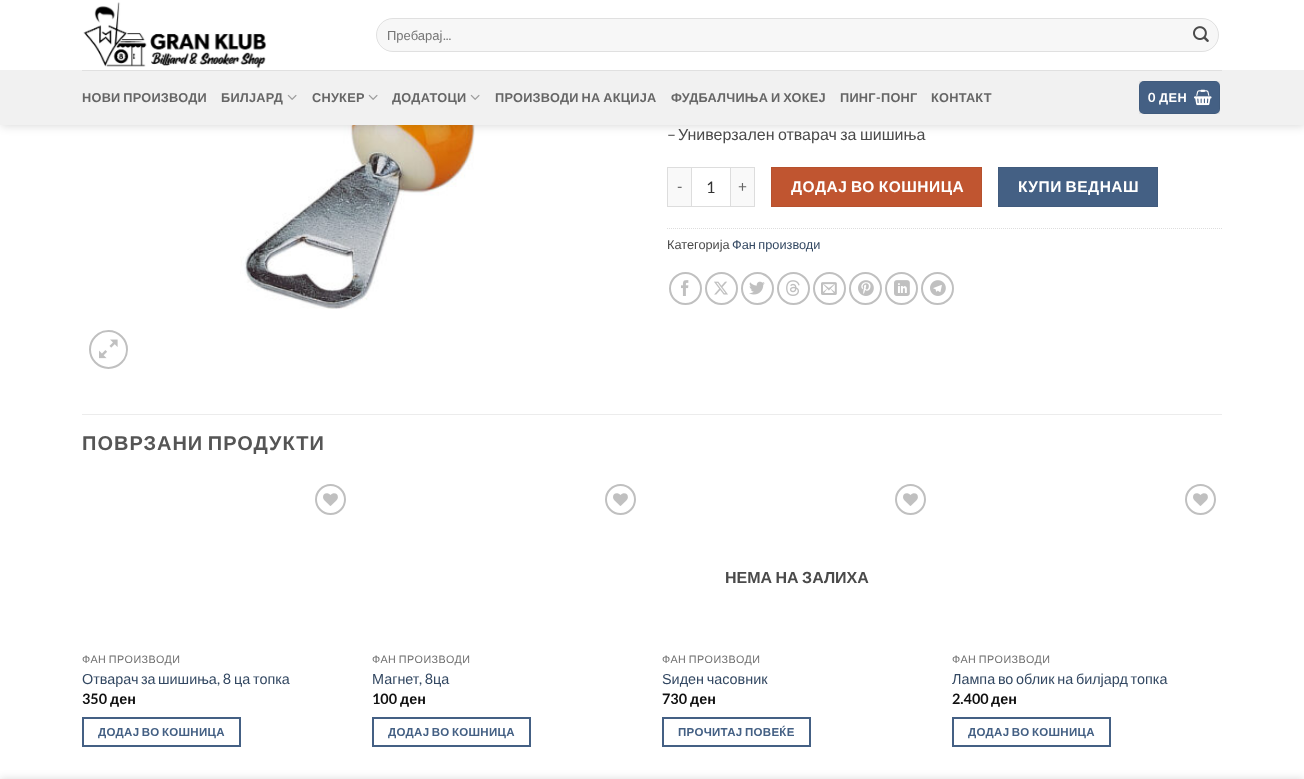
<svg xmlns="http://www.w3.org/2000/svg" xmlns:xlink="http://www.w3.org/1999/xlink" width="1304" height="779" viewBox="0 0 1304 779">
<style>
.cls-1{font:13px Liberation Sans;fill:#757575}
.cls-2{font:13px Lato;fill:#757575}
.cls-3{font:bold 12.75px Liberation Sans;letter-spacing:0.25px;fill:#666666}
.cls-4{font:bold 12.75px Lato;letter-spacing:0.25px;fill:#666666}
.cls-5{font:bold 12.75px Lato;letter-spacing:0.5px;fill:#ffffff}
.cls-6{font:bold 12.75px Liberation Sans;letter-spacing:0.5px;fill:#ffffff}
.cls-7{font:16px Lato;fill:#4a4a4a}
.cls-8{font:16px Liberation Sans;fill:#4a4a4a}
.cls-9{font:15.5px Lato;letter-spacing:0.5px;fill:#666666}
.cls-10{font:16px Lato;fill:#333333}
.cls-11{font:bold 15.5px Liberation Sans;letter-spacing:0.5px;fill:#ffffff}
.cls-12{font:12.75px Liberation Sans;fill:#4a4a4a}
.cls-13{font:12.75px Liberation Sans;fill:#334862}
.cls-14{font:bold 20px Liberation Sans;letter-spacing:1px;fill:#555555}
.cls-15{font:10.75px Liberation Sans;letter-spacing:0.5px;fill:#6e6e6e}
.cls-16{font:14.4px Liberation Sans;fill:#334862}
.cls-17{font:14.4px Lato;fill:#334862}
.cls-18{font:bold 14.4px Lato;fill:#111111}
.cls-19{font:bold 14.4px Liberation Sans;fill:#111111}
.cls-20{font:bold 11.5px Liberation Sans;letter-spacing:0.3px;fill:#446084}
.cls-21{font:bold 16px Liberation Sans;fill:#4a4a4a}
</style>
<rect width="100%" height="100%" fill="#ffffff"/>
<image xlink:href="image4.png" x="240" y="125" width="235" height="184"/>
<rect fill="#000000" fill-opacity="0.15" filter="blur(5px)" x="1" y="1" width="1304" height="125"/>
<rect fill="#ffffff" x="0" y="0" width="1304" height="70"/>
<image xlink:href="image0.png" x="83" y="2" width="184" height="67"/>
<rect fill="#f7f7f7" x="376" y="18" width="843" height="34" rx="17"/>
<rect fill="none" stroke="#000000" stroke-opacity="0.09" x="376.5" y="18.5" width="842" height="33" rx="16.5"/>
<image xlink:href="image1.png" x="1193" y="26" width="16" height="16"/>
<rect fill="#f1f1f1" x="0" y="70" width="1304" height="55"/>
<rect fill="#e0e0e0" x="82" y="70" width="1140" height="1"/>
<image xlink:href="image2.png" x="287" y="94" width="10" height="6"/>
<image xlink:href="image2.png" x="368" y="94" width="10" height="6"/>
<image xlink:href="image2.png" x="470" y="94" width="10" height="6"/>
<rect fill="#446084" x="1139" y="81" width="81" height="33" rx="5"/>
<rect fill="none" stroke="#000000" stroke-opacity="0.05" x="1139.5" y="81.5" width="80" height="32"/>
<image xlink:href="image3.png" x="1194" y="89" width="18" height="17"/>
<circle fill="none" stroke="#c0c0c0" stroke-width="2" cx="108.5" cy="349.5" r="18.5"/>
<image xlink:href="image5.png" x="99" y="339" width="19" height="20"/>
<rect fill="#f9f9f9" x="668" y="168" width="23" height="38"/>
<rect fill="#dddddd" x="667" y="167" width="24" height="1"/>
<rect fill="#dddddd" x="667" y="206" width="24" height="1"/>
<rect fill="#dddddd" x="667" y="167" width="1" height="40"/>
<rect fill="none" stroke="#dddddd" x="691.5" y="167.5" width="39" height="39"/>
<rect fill="#f9f9f9" x="731" y="168" width="23" height="38"/>
<rect fill="#dddddd" x="731" y="167" width="24" height="1"/>
<rect fill="#dddddd" x="754" y="167" width="1" height="40"/>
<rect fill="#dddddd" x="731" y="206" width="24" height="1"/>
<rect fill="#c05530" stroke="#b6512e" x="771.5" y="167.5" width="210" height="39"/>
<rect fill="#446084" stroke="#415b7d" x="998.5" y="167.5" width="159" height="39"/>
<path fill="none" stroke="#dddddd" stroke-dasharray="1 1" d="M667 228.5H1222"/>
<circle fill="none" stroke="#c0c0c0" stroke-width="2" cx="685.5" cy="288.5" r="15.5"/>
<image xlink:href="image6.png" x="681" y="280" width="8" height="16"/>
<circle fill="none" stroke="#c0c0c0" stroke-width="2" cx="721.5" cy="288.5" r="15.5"/>
<image xlink:href="image7.png" x="714" y="281" width="14" height="14"/>
<circle fill="none" stroke="#c0c0c0" stroke-width="2" cx="757.5" cy="288.5" r="15.5"/>
<image xlink:href="image8.png" x="749" y="281" width="16" height="14"/>
<circle fill="none" stroke="#c0c0c0" stroke-width="2" cx="793.5" cy="288.5" r="15.5"/>
<image xlink:href="image9.png" x="786" y="280" width="14" height="16"/>
<circle fill="none" stroke="#c0c0c0" stroke-width="2" cx="829.5" cy="288.5" r="15.5"/>
<image xlink:href="image10.png" x="821" y="282" width="16" height="13"/>
<circle fill="none" stroke="#c0c0c0" stroke-width="2" cx="865.5" cy="288.5" r="15.5"/>
<image xlink:href="image11.png" x="858" y="280" width="16" height="16"/>
<circle fill="none" stroke="#c0c0c0" stroke-width="2" cx="901.5" cy="288.5" r="15.5"/>
<image xlink:href="image12.png" x="894" y="280" width="16" height="16"/>
<circle fill="none" stroke="#c0c0c0" stroke-width="2" cx="937.5" cy="288.5" r="15.5"/>
<image xlink:href="image13.png" x="930" y="280" width="16" height="16"/>
<rect fill="#ececec" x="82" y="414" width="1140" height="1"/>
<circle fill="none" stroke="#c0c0c0" stroke-width="2" cx="330.5" cy="499.5" r="14.5"/>
<image xlink:href="image14.png" x="323" y="493" width="15" height="13"/>
<rect fill="none" stroke="#446084" stroke-width="2" x="83" y="718" width="157" height="28"/>
<circle fill="none" stroke="#c0c0c0" stroke-width="2" cx="620.5" cy="499.5" r="14.5"/>
<image xlink:href="image14.png" x="613" y="493" width="15" height="13"/>
<rect fill="none" stroke="#446084" stroke-width="2" x="373" y="718" width="157" height="28"/>
<circle fill="none" stroke="#c0c0c0" stroke-width="2" cx="910.5" cy="499.5" r="14.5"/>
<image xlink:href="image14.png" x="903" y="493" width="15" height="13"/>
<rect fill="none" stroke="#446084" stroke-width="2" x="663" y="718" width="147" height="28"/>
<circle fill="none" stroke="#c0c0c0" stroke-width="2" cx="1200.5" cy="499.5" r="14.5"/>
<image xlink:href="image14.png" x="1193" y="493" width="15" height="13"/>
<rect fill="none" stroke="#446084" stroke-width="2" x="953" y="718" width="157" height="28"/>
<rect fill="#000000" fill-opacity="0.14" filter="blur(4.5px)" x="0" y="779" width="1304" height="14"/>
<text class="cls-1" x="387" y="40">Пребарај</text>
<text class="cls-2" x="443" y="40">...</text>
<text class="cls-3" x="82" y="102" word-spacing="-1">НОВИ ПРОИЗВОДИ</text>
<text class="cls-3" x="221" y="102">БИЛЈАРД</text>
<text class="cls-3" x="312" y="102">СНУКЕР</text>
<text class="cls-3" x="392" y="102">ДОДАТОЦИ</text>
<text class="cls-3" x="495" y="102" word-spacing="-1">ПРОИЗВОДИ НА АКЦИЈА</text>
<text class="cls-3" x="671" y="102" word-spacing="-1">ФУДБАЛЧИЊА И ХОКЕЈ</text>
<text class="cls-3" x="840" y="102">ПИНГ</text>
<text class="cls-4" x="876" y="102">-</text>
<text class="cls-3" x="881" y="102">ПОНГ</text>
<text class="cls-3" x="931" y="102">КОНТАКТ</text>
<text class="cls-5" x="1148" y="102">0</text>
<text class="cls-6" x="1159" y="102">ДЕН</text>
<text class="cls-7" x="667" y="140">–</text>
<text class="cls-8" x="678" y="140" word-spacing="-1">Универзален отварач за шишиња</text>
<text class="cls-9" x="677" y="192">-</text>
<text class="cls-10" x="706" y="193">1</text>
<text class="cls-9" x="738" y="192">+</text>
<text class="cls-11" x="791" y="192" word-spacing="-1">ДОДАЈ ВО КОШНИЦА</text>
<text class="cls-11" x="1018" y="192" word-spacing="-1">КУПИ ВЕДНАШ</text>
<text class="cls-12" x="667" y="249">Категорија</text>
<text class="cls-13" x="732" y="249" word-spacing="-1">Фан производи</text>
<text class="cls-14" x="82" y="450" word-spacing="-2">ПОВРЗАНИ ПРОДУКТИ</text>
<text class="cls-15" x="82" y="663" word-spacing="-1">ФАН ПРОИЗВОДИ</text>
<text class="cls-16" x="82" y="684">Отварач</text>
<text class="cls-16" x="141" y="684">за</text>
<text class="cls-16" x="158" y="684">шишиња</text>
<text class="cls-17" x="217" y="684">, 8</text>
<text class="cls-16" x="234" y="684">ца</text>
<text class="cls-16" x="253" y="684">топка</text>
<text class="cls-18" x="82" y="704">350</text>
<text class="cls-19" x="110" y="704">ден</text>
<text class="cls-20" x="98" y="736" word-spacing="-1">ДОДАЈ ВО КОШНИЦА</text>
<text class="cls-15" x="372" y="663" word-spacing="-1">ФАН ПРОИЗВОДИ</text>
<text class="cls-16" x="372" y="684">Магнет</text>
<text class="cls-17" x="419" y="684">, 8</text>
<text class="cls-16" x="433" y="684">ца</text>
<text class="cls-18" x="372" y="704">100</text>
<text class="cls-19" x="400" y="704">ден</text>
<text class="cls-20" x="388" y="736" word-spacing="-1">ДОДАЈ ВО КОШНИЦА</text>
<text class="cls-21" x="725" y="583" word-spacing="-1">НЕМА НА ЗАЛИХА</text>
<text class="cls-15" x="662" y="663" word-spacing="-1">ФАН ПРОИЗВОДИ</text>
<text class="cls-16" x="662" y="684" word-spacing="-1.25">Ѕиден часовник</text>
<text class="cls-18" x="662" y="704">730</text>
<text class="cls-19" x="690" y="704">ден</text>
<text class="cls-20" x="678" y="736" word-spacing="-1">ПРОЧИТАЈ ПОВЕЌЕ</text>
<text class="cls-15" x="952" y="663" word-spacing="-1">ФАН ПРОИЗВОДИ</text>
<text class="cls-16" x="952" y="684" word-spacing="-1.25">Лампа во облик на билјард топка</text>
<text class="cls-18" x="952" y="704">2.400</text>
<text class="cls-19" x="991" y="704">ден</text>
<text class="cls-20" x="968" y="736" word-spacing="-1">ДОДАЈ ВО КОШНИЦА</text>
</svg>
